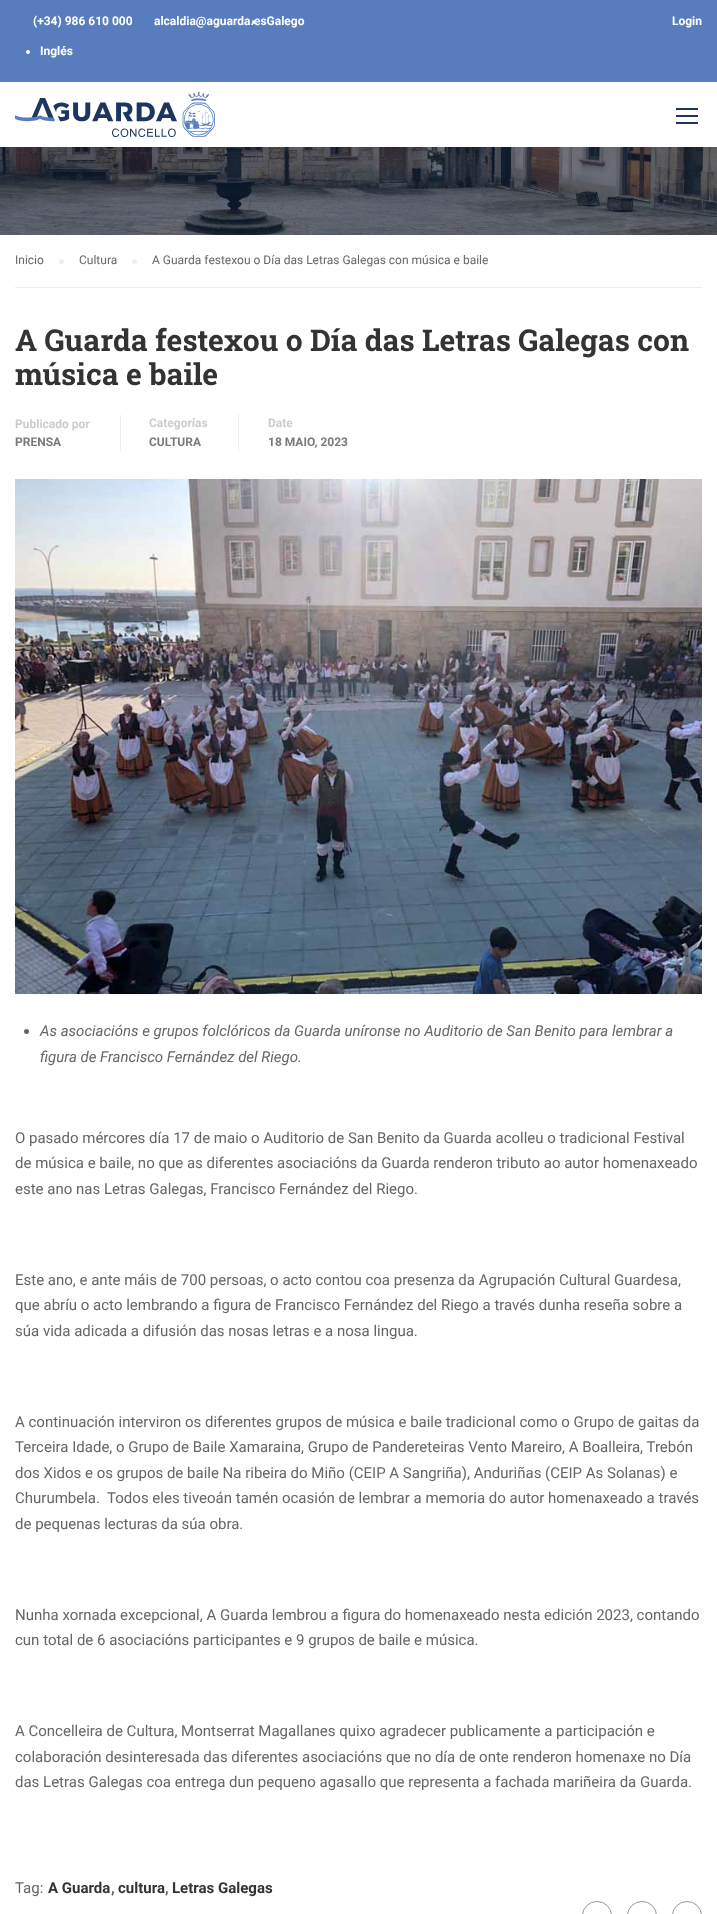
<svg xmlns="http://www.w3.org/2000/svg" xmlns:xlink="http://www.w3.org/1999/xlink" width="717" height="1914" viewBox="0 0 717 1914">
<style>
.cls-1{font:bold 12px Roboto;fill:#ffffff}
.cls-2{font:12px Roboto;fill:#666666}
.cls-3{font:bold 30px Roboto Slab;fill:#333333}
.cls-4{font:bold 12px Roboto;fill:#cccccc}
.cls-5{font:bold 12px Roboto;fill:#7a7a7a}
.cls-6{font:italic 15px Roboto;fill:#666666}
.cls-7{font:15px Roboto;fill:#666666}
.cls-8{font:bold 15px Roboto;fill:#333333}
.cls-9{font:bold 15px Roboto;fill:#666666}
</style>
<rect width="100%" height="100%" fill="#ffffff"/>
<rect fill="#577dbe" x="0" y="0" width="717" height="82"/>
<circle fill="#ffffff" cx="254" cy="22" r="2"/>
<circle fill="#ffffff" cx="28" cy="52" r="2"/>
<image xlink:href="image0.png" x="15" y="92" width="200" height="45"/>
<rect fill="#1c3660" x="676" y="108" width="22" height="2"/>
<rect fill="#1c3660" x="676" y="115" width="22" height="2"/>
<rect fill="#1c3660" x="676" y="122" width="22" height="2"/>
<image xlink:href="image1.png" x="0" y="147" width="717" height="88"/>
<rect fill="#eeeeee" x="15" y="287" width="687" height="1"/>
<circle fill="#eeeeee" cx="61.5" cy="261.5" r="2.5"/>
<circle fill="#eeeeee" cx="134.5" cy="261.5" r="2.5"/>
<rect fill="#eeeeee" x="120" y="415" width="1" height="36"/>
<rect fill="#eeeeee" x="238" y="414" width="1" height="37"/>
<image xlink:href="image2.png" x="15" y="479" width="687" height="515"/>
<circle fill="#666666" cx="26.5" cy="1031.5" r="2.5"/>
<rect fill="none" stroke="#999999" x="582.5" y="1901.5" width="29" height="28" rx="14.5"/>
<rect fill="none" stroke="#999999" x="627.5" y="1901.5" width="29" height="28" rx="14.5"/>
<rect fill="none" stroke="#999999" x="672.5" y="1901.5" width="29" height="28" rx="14.5"/>
<text class="cls-1" x="33" y="25">(+34) 986 610 000</text>
<text class="cls-1" x="154" y="25">alcaldia@aguarda.esGalego</text>
<text class="cls-1" x="672" y="25">Login</text>
<text class="cls-1" x="40" y="55">Inglés</text>
<text class="cls-2" x="15" y="264">Inicio</text>
<text class="cls-2" x="79" y="264">Cultura</text>
<text class="cls-2" x="152" y="264">A Guarda festexou o Día das Letras Galegas con música e baile</text>
<text class="cls-3"><tspan x="15" y="351">A Guarda festexou o Día das Letras Galegas con</tspan><tspan x="15" y="385">música e baile</tspan></text>
<text class="cls-4" x="15" y="428">Publicado por</text>
<text class="cls-5" x="15" y="446">PRENSA</text>
<text class="cls-4" x="149" y="427">Categorías</text>
<text class="cls-5" x="149" y="446">CULTURA</text>
<text class="cls-4" x="268" y="427">Date</text>
<text class="cls-5" x="268" y="446">18 MAIO, 2023</text>
<text class="cls-6"><tspan x="40" y="1036">As asociacións e grupos folclóricos da Guarda uníronse no Auditorio de San Benito para lembrar a</tspan><tspan x="40" y="1062">figura de Francisco Fernández del Riego.</tspan></text>
<text class="cls-7"><tspan x="15" y="1143">O pasado mércores día 17 de maio o Auditorio de San Benito da Guarda acolleu o tradicional Festival</tspan><tspan x="15" y="1168">de música e baile, no que as diferentes asociacións da Guarda renderon tributo ao autor homenaxeado</tspan><tspan x="15" y="1194">este ano nas Letras Galegas, Francisco Fernández del Riego.</tspan></text>
<text class="cls-7"><tspan x="15" y="1285">Este ano, e ante máis de 700 persoas, o acto contou coa presenza da Agrupación Cultural Guardesa,</tspan><tspan x="15" y="1310">que abríu o acto lembrando a figura de Francisco Fernández del Riego a través dunha reseña sobre a</tspan><tspan x="15" y="1336">súa vida adicada a difusión das nosas letras e a nosa lingua.</tspan></text>
<text class="cls-7" xml:space="preserve"><tspan x="15" y="1427">A continuación interviron os diferentes grupos de música e baile tradicional como o Grupo de gaitas da</tspan><tspan x="15" y="1452">Terceira Idade, o Grupo de Baile Xamaraina, Grupo de Pandereteiras Vento Mareiro, A Boalleira, Trebón</tspan><tspan x="15" y="1478">dos Xidos e os grupos de baile Na ribeira do Miño (CEIP A Sangriña), Anduriñas (CEIP As Solanas) e</tspan><tspan x="15" y="1503">Churumbela.  Todos eles tiveoán tamén ocasión de lembrar a memoria do autor homenaxeado a través</tspan><tspan x="15" y="1529">de pequenas lecturas da súa obra.</tspan></text>
<text class="cls-7"><tspan x="15" y="1620">Nunha xornada excepcional, A Guarda lembrou a figura do homenaxeado nesta edición 2023, contando</tspan><tspan x="15" y="1645">cun total de 6 asociacións participantes e 9 grupos de baile e música.</tspan></text>
<text class="cls-7"><tspan x="15" y="1736">A Concelleira de Cultura, Montserrat Magallanes quixo agradecer publicamente a participación e</tspan><tspan x="15" y="1762">colaboración desinteresada das diferentes asociacións que no día de onte renderon homenaxe no Día</tspan><tspan x="15" y="1787">das Letras Galegas coa entrega dun pequeno agasallo que representa a fachada mariñeira da Guarda.</tspan></text>
<text class="cls-7" x="15" y="1893">Tag:</text>
<text class="cls-8" x="48" y="1893">A Guarda</text>
<text class="cls-9" x="111" y="1893">,</text>
<text class="cls-8" x="118" y="1893">cultura</text>
<text class="cls-9" x="165" y="1893">,</text>
<text class="cls-8" x="172" y="1893">Letras Galegas</text>
</svg>
